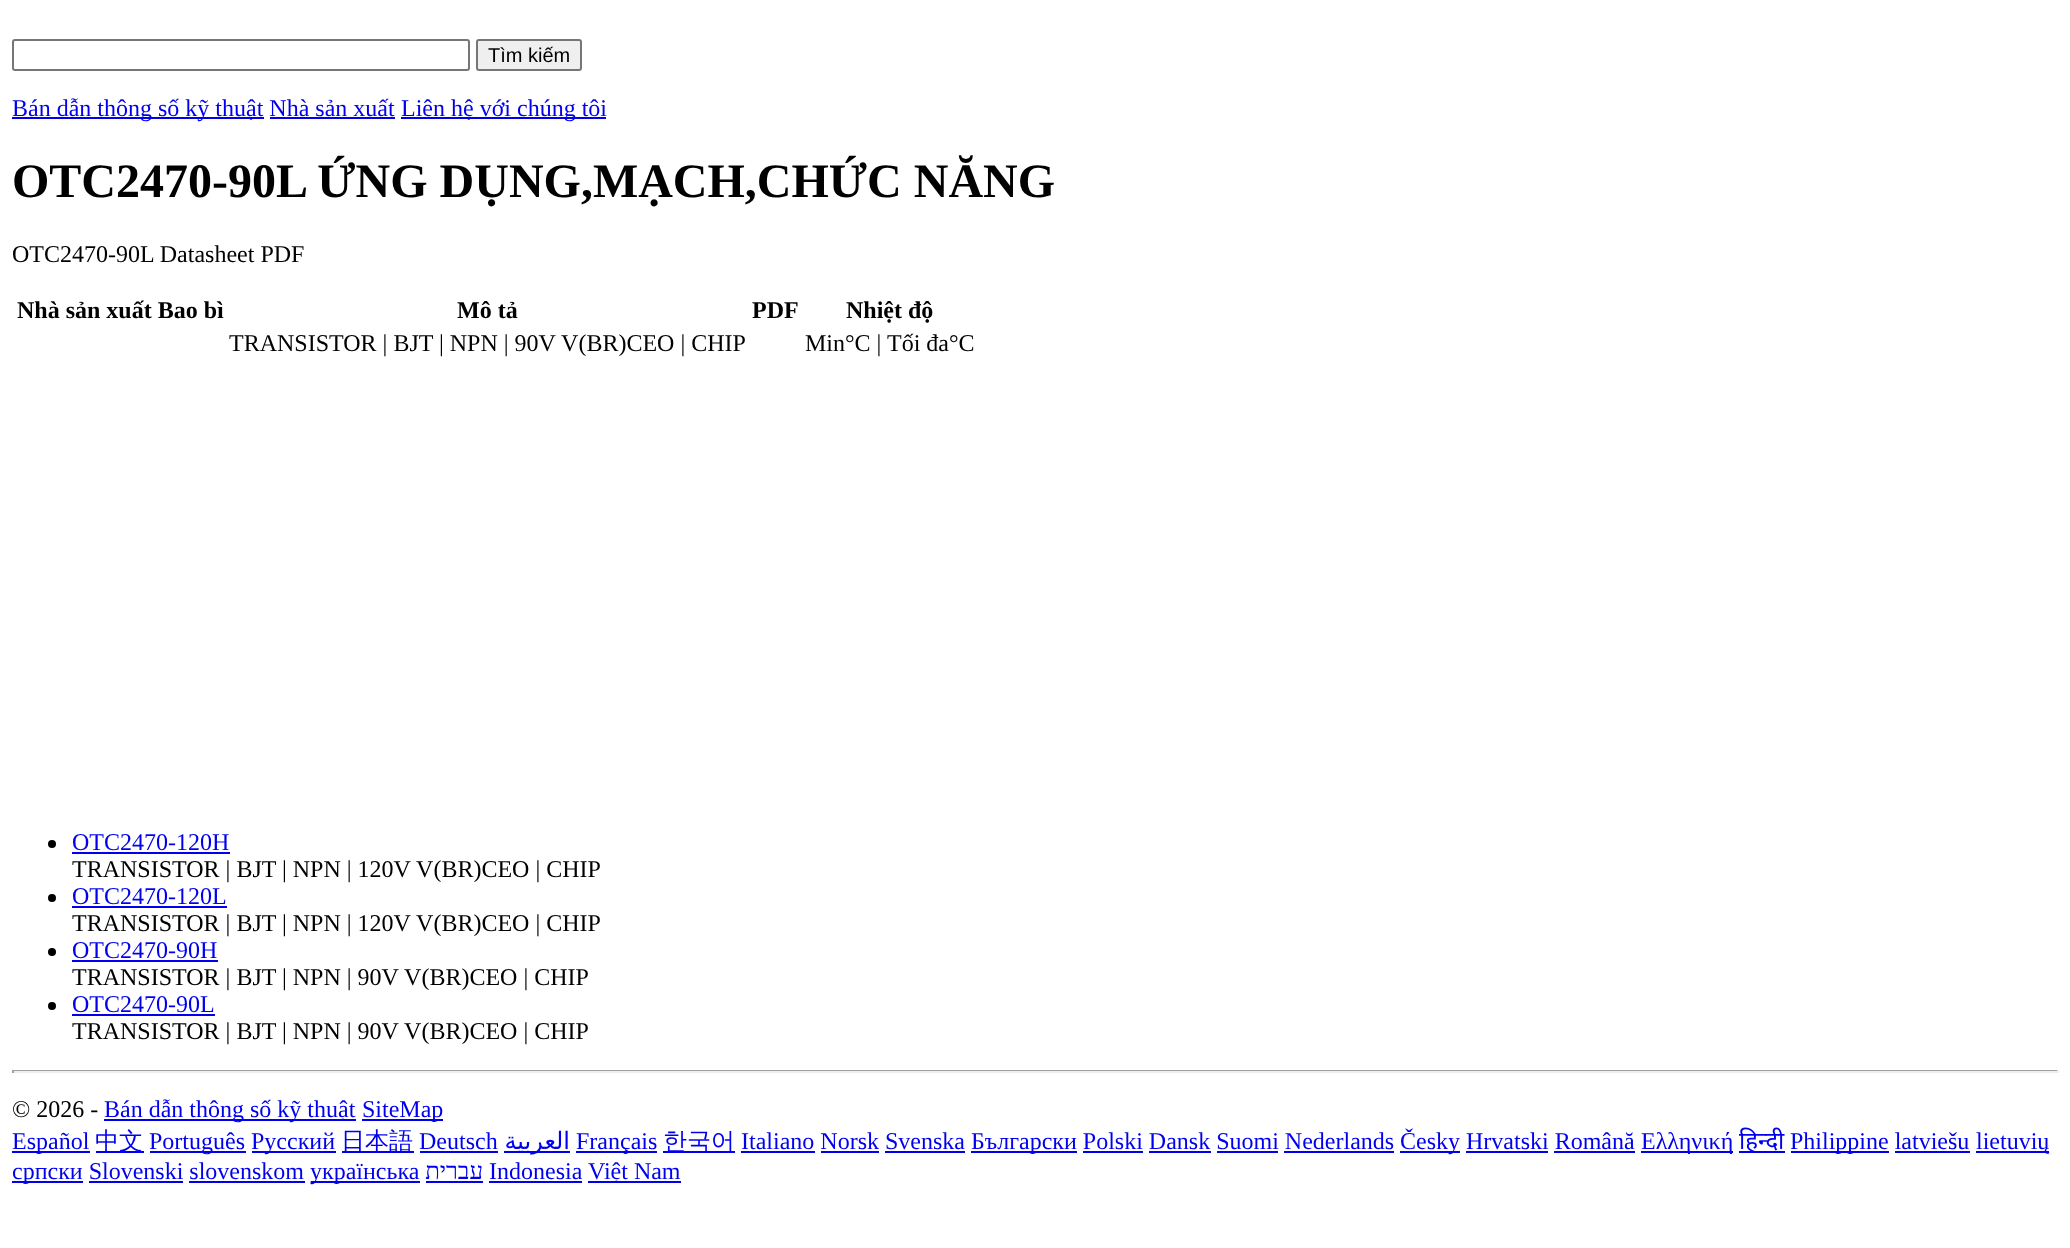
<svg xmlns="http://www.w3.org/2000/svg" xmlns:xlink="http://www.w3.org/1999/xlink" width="2070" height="1248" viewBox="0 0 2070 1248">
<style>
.cls-1{font:20px Liberation Sans;fill:#000000}
.cls-2{font:24px Liberation Serif;fill:#0000ee}
.cls-3{font:bold 48px Liberation Serif;fill:#000000}
.cls-4{font:24px Liberation Serif;fill:#000000}
.cls-5{font:bold 24px Liberation Serif;fill:#000000}
.cls-6{font:500 24px WenQuanYi Zen Hei;fill:#0000ee}
.cls-7{font:24px DejaVu Sans;direction:rtl;fill:#0000ee}
.cls-8{font:24px Noto Sans;fill:#0000ee}
.cls-9{font:24px Liberation Serif;direction:rtl;fill:#0000ee}
</style>
<rect width="100%" height="100%" fill="#ffffff"/>
<rect fill="none" stroke="#767676" stroke-width="2" x="13" y="40" width="456" height="30" rx="2"/>
<rect fill="#efefef" stroke="#767676" stroke-width="2" x="477" y="40" width="104" height="30" rx="2"/>
<rect fill="#0000ee" x="12" y="117" width="252" height="2"/>
<rect fill="#0000ee" x="401" y="117" width="205" height="2"/>
<rect fill="#0000ee" x="270" y="117" width="125" height="2"/>
<circle fill="#000000" cx="52" cy="844" r="4"/>
<rect fill="#0000ee" x="72" y="852" width="158" height="2"/>
<circle fill="#000000" cx="52" cy="898" r="4"/>
<rect fill="#0000ee" x="72" y="906" width="155" height="2"/>
<circle fill="#000000" cx="52" cy="952" r="4"/>
<rect fill="#0000ee" x="72" y="960" width="146" height="2"/>
<circle fill="#000000" cx="52" cy="1006" r="4"/>
<rect fill="#0000ee" x="72" y="1014" width="143" height="2"/>
<rect fill="#9f9f9f" x="12" y="1070" width="2046" height="1"/>
<rect fill="#eeeeee" x="2057" y="1070" width="2" height="3"/>
<rect fill="#eeeeee" x="12" y="1071" width="2046" height="2"/>
<rect fill="#9f9f9f" x="12" y="1070" width="2" height="3"/>
<rect fill="#0000ee" x="104" y="1119" width="252" height="2"/>
<rect fill="#0000ee" x="362" y="1119" width="81" height="2"/>
<rect fill="#0000ee" x="12" y="1151" width="78" height="2"/>
<rect fill="#0000ee" x="96" y="1151" width="48" height="2"/>
<rect fill="#0000ee" x="150" y="1151" width="96" height="2"/>
<rect fill="#0000ee" x="252" y="1151" width="84" height="2"/>
<rect fill="#0000ee" x="342" y="1151" width="72" height="2"/>
<rect fill="#0000ee" x="420" y="1151" width="78" height="2"/>
<rect fill="#0000ee" x="504" y="1151" width="66" height="2"/>
<rect fill="#0000ee" x="576" y="1151" width="81" height="2"/>
<rect fill="#0000ee" x="663" y="1151" width="72" height="2"/>
<rect fill="#0000ee" x="741" y="1151" width="74" height="2"/>
<rect fill="#0000ee" x="971" y="1151" width="106" height="2"/>
<rect fill="#0000ee" x="1400" y="1151" width="60" height="2"/>
<rect fill="#0000ee" x="1641" y="1151" width="92" height="2"/>
<rect fill="#0000ee" x="1739" y="1151" width="46" height="2"/>
<rect fill="#0000ee" x="1791" y="1151" width="98" height="2"/>
<rect fill="#0000ee" x="1976" y="1151" width="73" height="2"/>
<rect fill="#0000ee" x="821" y="1151" width="58" height="2"/>
<rect fill="#0000ee" x="885" y="1151" width="80" height="2"/>
<rect fill="#0000ee" x="1083" y="1151" width="60" height="2"/>
<rect fill="#0000ee" x="1149" y="1151" width="62" height="2"/>
<rect fill="#0000ee" x="1217" y="1151" width="61" height="2"/>
<rect fill="#0000ee" x="1284" y="1151" width="110" height="2"/>
<rect fill="#0000ee" x="1466" y="1151" width="82" height="2"/>
<rect fill="#0000ee" x="1554" y="1151" width="81" height="2"/>
<rect fill="#0000ee" x="1895" y="1151" width="75" height="2"/>
<rect fill="#0000ee" x="12" y="1181" width="71" height="2"/>
<rect fill="#0000ee" x="311" y="1181" width="109" height="2"/>
<rect fill="#0000ee" x="426" y="1181" width="57" height="2"/>
<rect fill="#0000ee" x="489" y="1181" width="93" height="2"/>
<rect fill="#0000ee" x="588" y="1181" width="93" height="2"/>
<rect fill="#0000ee" x="89" y="1181" width="94" height="2"/>
<rect fill="#0000ee" x="189" y="1181" width="116" height="2"/>
<text class="cls-1" x="488" y="62">Tìm kiếm</text>
<text class="cls-2" x="12" y="116">Bán dẫn thông số kỹ thuật Nhà sản xuất</text>
<text class="cls-2" x="401" y="116">Liên hệ với chúng tôi</text>
<text class="cls-3" x="12" y="197">OTC2470-90L ỨNG DỤNG,MẠCH,CHỨC NĂNG</text>
<text class="cls-4" x="12" y="262">OTC2470-90L Datasheet PDF</text>
<text class="cls-5" x="17" y="318">Nhà sản xuất Bao bì</text>
<text class="cls-5" x="457" y="318">Mô tả</text>
<text class="cls-5" x="752" y="318">PDF</text>
<text class="cls-5" x="846" y="318">Nhiệt độ</text>
<text class="cls-4" x="229" y="351">TRANSISTOR | BJT | NPN | 90V V(BR)CEO | CHIP</text>
<text class="cls-4" x="805" y="351">Min°C | Tối đa°C</text>
<text class="cls-2" x="72" y="850">OTC2470-120H</text>
<text class="cls-4" x="72" y="877">TRANSISTOR | BJT | NPN | 120V V(BR)CEO | CHIP</text>
<text class="cls-2" x="72" y="904">OTC2470-120L</text>
<text class="cls-4" x="72" y="931">TRANSISTOR | BJT | NPN | 120V V(BR)CEO | CHIP</text>
<text class="cls-2" x="72" y="958">OTC2470-90H</text>
<text class="cls-4" x="72" y="985">TRANSISTOR | BJT | NPN | 90V V(BR)CEO | CHIP</text>
<text class="cls-2" x="72" y="1012">OTC2470-90L</text>
<text class="cls-4" x="72" y="1039">TRANSISTOR | BJT | NPN | 90V V(BR)CEO | CHIP</text>
<text class="cls-4" x="12" y="1117">© 2026 -</text>
<text class="cls-2" x="104" y="1117">Bán dẫn thông số kỹ thuật</text>
<text class="cls-2" x="362" y="1117">SiteMap</text>
<text class="cls-2" x="12" y="1149">Español</text>
<text class="cls-6" x="95" y="1149">中文</text>
<text class="cls-2" x="149" y="1149">Português</text>
<text class="cls-2" x="251" y="1149">Русский</text>
<text class="cls-6" x="341" y="1149">日本語</text>
<text class="cls-2" x="419" y="1149">Deutsch</text>
<text class="cls-7" x="570" y="1149">العربية</text>
<text class="cls-2" x="576" y="1149">Français</text>
<text class="cls-6" x="663" y="1149">한국어</text>
<text class="cls-2" x="741" y="1149">Italiano Norsk Svenska</text>
<text class="cls-2" x="971" y="1149">Български Polski Dansk Suomi Nederlands</text>
<text class="cls-2" x="1400" y="1149">Česky Hrvatski Română</text>
<text class="cls-2" x="1641" y="1149">Ελληνική</text>
<text class="cls-8" x="1739" y="1149">हिन्दी</text>
<text class="cls-2" x="1790" y="1149">Philippine latviešu</text>
<text class="cls-2" x="1976" y="1149">lietuvių</text>
<text class="cls-2" x="12" y="1179">српски Slovenski slovenskom</text>
<text class="cls-2" x="310" y="1179">українська</text>
<text class="cls-9" x="483" y="1179">עברית</text>
<text class="cls-2" x="489" y="1179">Indonesia</text>
<text class="cls-2" x="588" y="1179">Việt Nam</text>
</svg>
